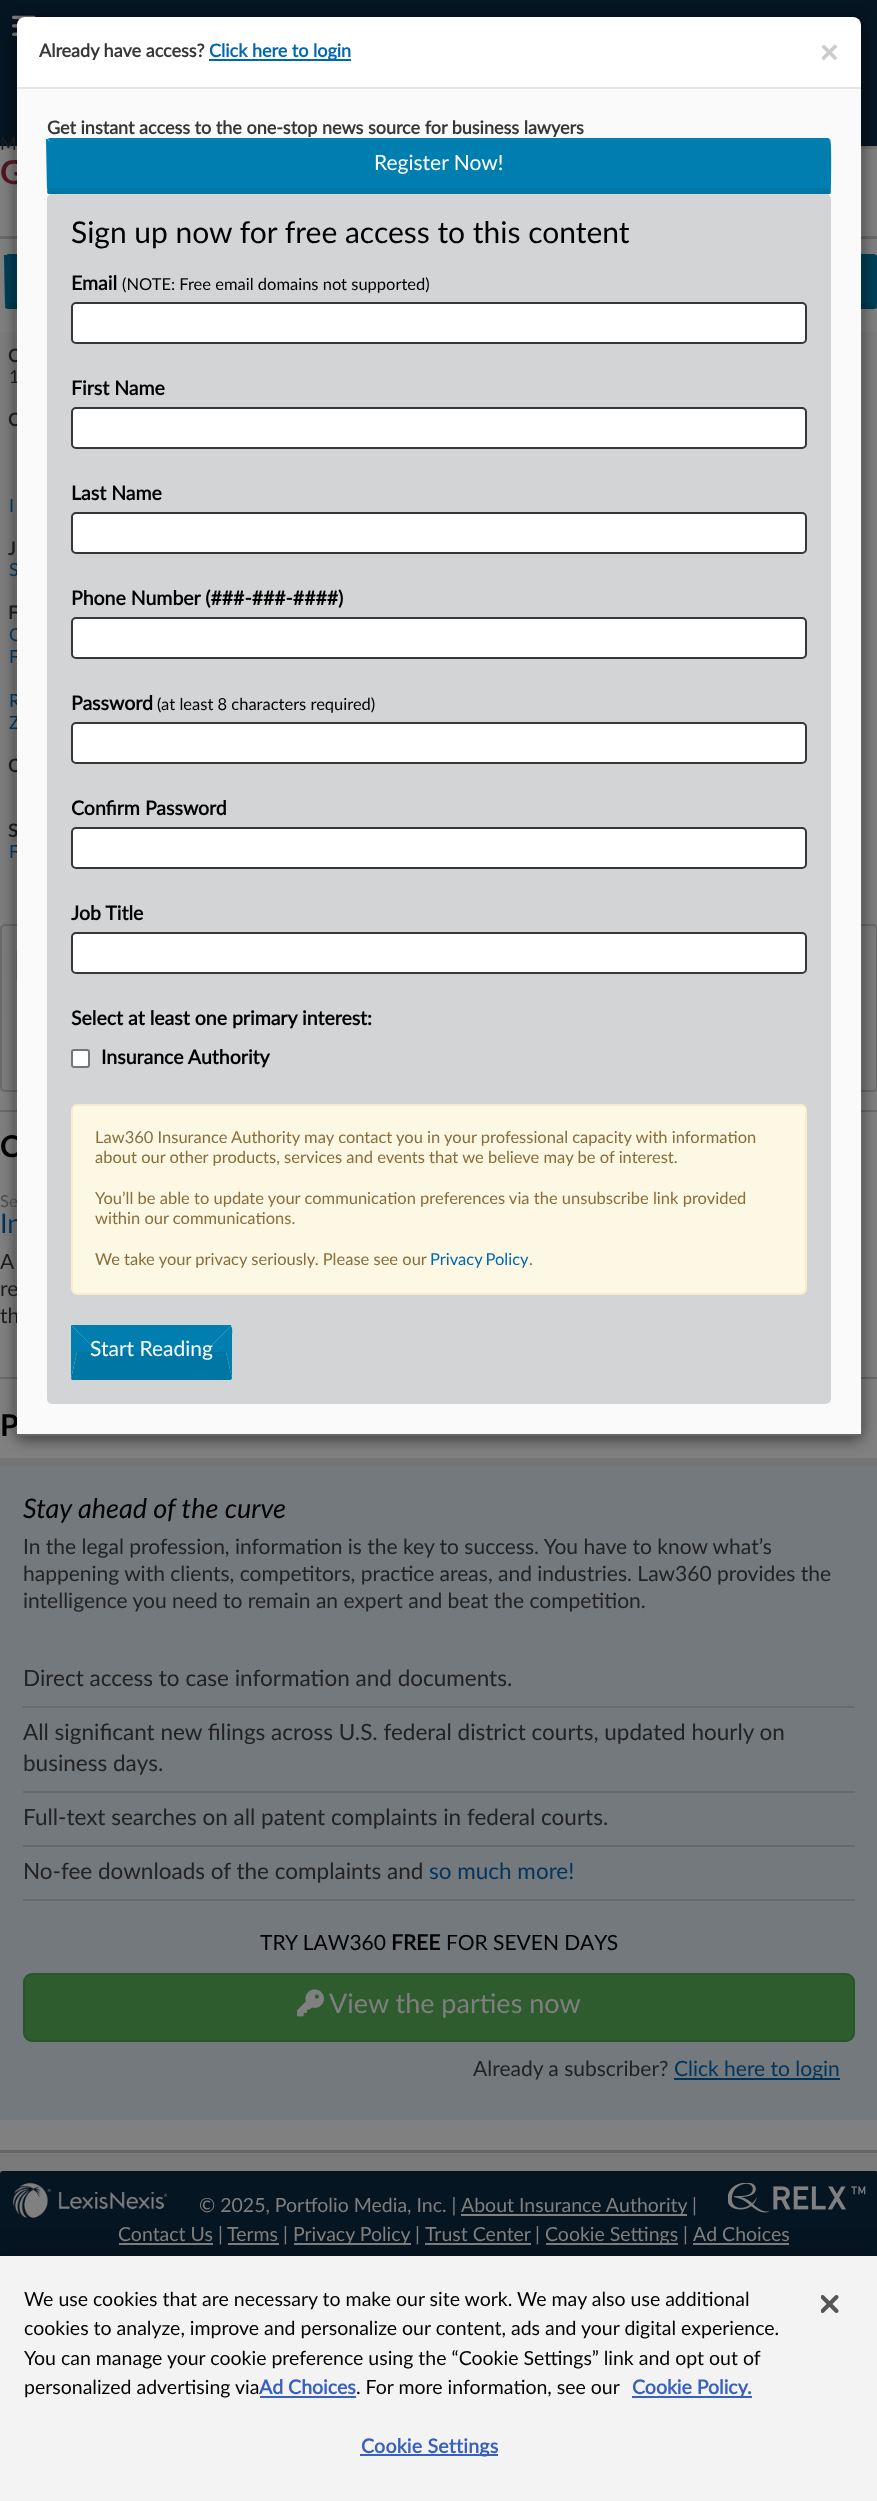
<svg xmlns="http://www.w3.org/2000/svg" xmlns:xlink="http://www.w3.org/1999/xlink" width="877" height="2501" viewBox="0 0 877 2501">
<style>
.cls-1{font:18px Lato;fill:#1c1c1d}
.cls-2{font:bold 33px Lato;fill:#4e1622}
.cls-3{font:bold 18px 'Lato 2';fill:#1c1c1d}
.cls-4{font:18px Lato;fill:#003459}
.cls-5{font:bold 30px Lato;fill:#000000}
.cls-6{font:16.5px Lato;fill:#4d4d4d}
.cls-7{font:27px Lato;fill:#003459}
.cls-8{font:21px Lato;fill:#1c1c1d}
.cls-9{font:bold 19.5px 'Lato 2';fill:#000000}
.cls-10{font:16.5px Lato;fill:#000000}
.cls-11{font:21px Lato;fill:#ffffff}
.cls-12{font:16.5px Lato;fill:#8a6d3b}
.cls-13{font:16.5px Lato;fill:#0067b1}
.cls-14{font:30px Lato;fill:#000000}
.cls-15{font:bold 18px 'Lato 2';fill:#373739}
.cls-16{font:bold 32px Liberation Sans;fill:#cccccc}
.cls-17{font:bold 18px 'Lato 2';fill:#0067b1}
.cls-18{font:italic 27px Lato;fill:#000000}
.cls-19{font:21px Lato;fill:#222222}
.cls-20{font:22.5px Lato;fill:#222222}
.cls-21{font:22.5px Lato;fill:#003459}
.cls-22{font:21px Lato;fill:#000000}
.cls-23{font:bold 21px 'Lato 2';fill:#000000}
.cls-24{font:27px Lato;fill:#7f7f7f}
.cls-25{font:21px Lato;fill:#003459}
.cls-26{font:19.5px Lato;fill:#7f7f7f}
.cls-27{font:19.5px Lato;fill:#000000}
.cls-28{font:bold 19.5px 'Lato 2';fill:#3860be}
.cls-29{font:bold 19.5px 'Lato 2';letter-spacing:0.25px;fill:#3860be}
</style>
<defs>
<clipPath id="clip1"><path d="M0 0H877V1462H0ZM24 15H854C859 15 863 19 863 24V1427C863 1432 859 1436 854 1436H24C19 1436 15 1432 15 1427V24C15 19 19 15 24 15Z" clip-rule="evenodd"/></clipPath>
<clipPath id="clip2"><rect x="71" y="1325" width="736" height="55"/></clipPath>
</defs>
<rect width="100%" height="100%" fill="#7a7a7a"/>
<rect fill="#061522" x="0" y="0" width="877" height="146"/>
<rect fill="#757575" x="0" y="146" width="877" height="3"/>
<image xlink:href="image0.png" x="12" y="15" width="24" height="21"/>
<rect fill="#808080" x="0" y="149" width="877" height="2001"/>
<rect fill="#666666" x="0" y="2150" width="877" height="3"/>
<rect fill="#696a6b" x="0" y="236" width="877" height="3"/>
<path fill="#003f58" d="M8 255H874C875 255 876 256 876 256V303H6V256Z"/>
<path fill="#003f58" d="M8 254L6 255L7 256L8 255H874L875 256L876 255L874 254Z"/>
<path fill="#003f58" d="M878 308H877L876 303V256H875L876 255H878Z"/>
<path fill="#003b52" d="M8 309H874L877 308L876 303H6L5 308Z"/>
<path fill="#003f58" d="M4 255H6L7 256H6V303L5 308Z"/>
<rect fill="#7d7d7d" x="0" y="332" width="877" height="592"/>
<rect fill="#7d7d7d" stroke="#696a6b" stroke-width="2" x="1" y="925" width="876" height="166" rx="4"/>
<image xlink:href="image1.png" x="16" y="951" width="1" height="29"/>
<rect fill="#696a6b" x="0" y="1110" width="877" height="2"/>
<rect fill="#696a6b" x="0" y="1377" width="877" height="2"/>
<rect fill="#757575" x="0" y="1458" width="877" height="9"/>
<g clip-path="url(#clip1)">
<rect fill="#000000" fill-opacity="0.5" filter="blur(7px)" x="15" y="20" width="848" height="1420" rx="9"/>
</g>
<rect fill="#74797d" x="0" y="1467" width="877" height="653"/>
<rect fill="#696a6b" x="23" y="1706" width="832" height="2"/>
<rect fill="#696a6b" x="23" y="1791" width="832" height="2"/>
<rect fill="#696a6b" x="23" y="1845" width="832" height="2"/>
<rect fill="#696a6b" x="23" y="1899" width="832" height="2"/>
<rect fill="#2e5c2e" stroke="#265726" stroke-width="2" x="24" y="1974" width="830" height="67" rx="8"/>
<image xlink:href="image2.png" x="297" y="1989" width="27" height="28"/>
<rect fill="#003459" x="674" y="2078" width="166" height="2"/>
<rect fill="#061522" x="0" y="2171" width="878" height="111" rx="3"/>
<image xlink:href="image3.png" x="12" y="2182" width="156" height="36"/>
<rect fill="#808080" x="461" y="2214" width="226" height="2"/>
<rect fill="#808080" x="119" y="2243" width="94" height="2"/>
<rect fill="#808080" x="228" y="2243" width="51" height="2"/>
<rect fill="#808080" x="294" y="2243" width="117" height="2"/>
<rect fill="#808080" x="425" y="2243" width="106" height="2"/>
<rect fill="#808080" x="546" y="2243" width="132" height="2"/>
<rect fill="#808080" x="693" y="2243" width="96" height="2"/>
<image xlink:href="image4.png" x="728" y="2183" width="138" height="30"/>
<rect fill="#000000" fill-opacity="0.2" filter="blur(13.5px)" x="0" y="2256" width="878" height="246"/>
<rect fill="#f3f3f3" x="0" y="2256" width="877" height="245"/>
<rect fill="#3860be" x="260" y="2396" width="96" height="2"/>
<rect fill="#3860be" x="632" y="2396" width="120" height="2"/>
<rect fill="#3860be" x="360" y="2454" width="138" height="2"/>
<image xlink:href="image5.png" x="821" y="2295" width="18" height="18"/>
<text class="cls-1" x="0" y="150">M</text>
<text class="cls-2" x="0" y="184">G</text>
<text class="cls-3" x="8" y="362">C</text>
<text class="cls-1" x="9" y="383">1</text>
<text class="cls-3" x="8" y="426">C</text>
<text class="cls-4" x="9" y="512">I</text>
<text class="cls-3" x="8" y="555">J</text>
<text class="cls-4" x="9" y="576">S</text>
<text class="cls-3" x="8" y="619">F</text>
<text class="cls-4"><tspan x="9" y="641">C</tspan><tspan x="9" y="663">F</tspan></text>
<text class="cls-4"><tspan x="9" y="707">R</tspan><tspan x="9" y="729">Z</tspan></text>
<text class="cls-3" x="8" y="772">C</text>
<text class="cls-3" x="8" y="837">S</text>
<text class="cls-4" x="9" y="858">F</text>
<text class="cls-5" x="0" y="1157">C</text>
<text class="cls-6" x="0" y="1207">Se</text>
<text class="cls-7" x="0" y="1233">In</text>
<text class="cls-8"><tspan x="0" y="1269">A</tspan><tspan x="0" y="1296">re</tspan><tspan x="0" y="1323">th</tspan></text>
<text class="cls-5" x="0" y="1436">P</text>
<rect fill="#ffffff" x="17" y="17" width="844" height="1417" rx="8"/>
<rect fill="none" stroke="#000000" stroke-opacity="0.2" stroke-width="2" x="16" y="16" width="846" height="1419" rx="8"/>
<rect fill="#fafafa" x="17" y="89" width="844" height="1345"/>
<rect fill="#d2d4d5" stroke="#d2d4d5" stroke-width="2" x="48" y="195" width="782" height="1208" rx="4"/>
<text class="cls-9" x="101" y="1064">Insurance Authority</text>
<text class="cls-9" x="71" y="1025">Select at least one primary interest:</text>
<rect fill="#ffffff" stroke="#767676" stroke-width="2" x="72" y="1050" width="17" height="17" rx="2"/>
<rect fill="#ffffff" stroke="#373739" stroke-width="2" x="72" y="933" width="734" height="40" rx="4"/>
<text class="cls-9" x="71" y="920">Job Title</text>
<rect fill="#ffffff" stroke="#373739" stroke-width="2" x="72" y="828" width="734" height="40" rx="4"/>
<text class="cls-9" x="71" y="815">Confirm Password</text>
<rect fill="#ffffff" stroke="#373739" stroke-width="2" x="72" y="723" width="734" height="40" rx="4"/>
<text class="cls-10" x="157" y="710">(at least 8 characters required)</text>
<text class="cls-9" x="71" y="710">Password</text>
<rect fill="#ffffff" stroke="#373739" stroke-width="2" x="72" y="618" width="734" height="40" rx="4"/>
<text class="cls-9" x="71" y="605">Phone Number (###-###-####)</text>
<rect fill="#ffffff" stroke="#373739" stroke-width="2" x="72" y="513" width="734" height="40" rx="4"/>
<text class="cls-9" x="71" y="500">Last Name</text>
<rect fill="#ffffff" stroke="#373739" stroke-width="2" x="72" y="408" width="734" height="40" rx="4"/>
<text class="cls-9" x="71" y="395">First Name</text>
<rect fill="#ffffff" stroke="#373739" stroke-width="2" x="72" y="303" width="734" height="40" rx="4"/>
<text class="cls-10" x="122" y="290">(NOTE: Free email domains not supported)</text>
<text class="cls-9" x="71" y="290">Email</text>
<g clip-path="url(#clip2)">
<path fill="#007eb0" d="M231 1324H72L71 1325L98 1352H205L231 1326Z"/>
</g>
<path fill="#007eb0" d="M231 1326L205 1352H226L232 1378V1336C232 1335 233 1328 231 1326Z"/>
<path fill="#0076a4" d="M232 1378L226 1352H77L71 1379C72 1380 73 1380 74 1380H230C231 1380 232 1379 232 1378Z"/>
<g clip-path="url(#clip2)">
<path fill="#007eb0" d="M71 1379L77 1352H98L71 1325L70 1326Z"/>
</g>
<text class="cls-11" x="90" y="1356">Start Reading</text>
<rect fill="#fcf8e3" stroke="#faebcc" stroke-width="2" x="72" y="1105" width="734" height="189" rx="5"/>
<text class="cls-12" x="529" y="1265">.</text>
<text class="cls-13" x="430" y="1265" word-spacing="-1">Privacy Policy</text>
<text class="cls-12" x="95" y="1265">We take your privacy seriously. Please see our</text>
<text class="cls-12" x="95" y="1224">within our communications.</text>
<text class="cls-12" x="95" y="1204">You’ll be able to update your communication preferences via the unsubscribe link provided</text>
<text class="cls-12" x="95" y="1163">about our other products, services and events that we believe may be of interest.</text>
<text class="cls-12" x="95" y="1143">Law360 Insurance Authority may contact you in your professional capacity with information</text>
<text class="cls-14" x="71" y="243">Sign up now for free access to this content</text>
<path fill="#007eb0" d="M50 140H828C829 140 830 140 830 141V188H48V141Z"/>
<text class="cls-11" x="374" y="170">Register Now!</text>
<text class="cls-15" x="47" y="134">Get instant access to the one-stop news source for business lawyers</text>
<path fill="#007eb0" d="M50 138L47 139L49 140H50H829L830 139L828 138Z"/>
<path fill="#007eb0" d="M831 190C831 184 832 141 830 139L829 140L830 141V188L831 192Z"/>
<path fill="#0076a4" d="M48 194L47 192L48 188H830L831 192L830 194Z"/>
<path fill="#007eb0" d="M46 139H47L49 140L48 141V188L47 192Z"/>
<text class="cls-16" x="820" y="63">×</text>
<rect fill="#0067b1" x="209" y="59" width="142" height="2"/>
<text class="cls-17" x="209" y="57">Click here to login</text>
<text class="cls-15" x="39" y="57">Already have access?</text>
<rect fill="#e5e5e5" x="17" y="87" width="844" height="2"/>
<text class="cls-18" x="23" y="1518">Stay ahead of the curve</text>
<text class="cls-19"><tspan x="23" y="1554">In the legal profession, information is the key to success. You have to know what’s</tspan><tspan x="23" y="1581">happening with clients, competitors, practice areas, and industries. Law360 provides the</tspan><tspan x="23" y="1608">intelligence you need to remain an expert and beat the competition.</tspan></text>
<text class="cls-20" x="23" y="1686">Direct access to case information and documents.</text>
<text class="cls-20"><tspan x="23" y="1740">All significant new filings across U.S. federal district courts, updated hourly on</tspan><tspan x="23" y="1771">business days.</tspan></text>
<text class="cls-20" x="23" y="1825">Full-text searches on all patent complaints in federal courts.</text>
<text class="cls-20" x="23" y="1879">No-fee downloads of the complaints and</text>
<text class="cls-21" x="429" y="1879">so much more!</text>
<text class="cls-22" x="260" y="1950">TRY LAW360</text>
<text class="cls-23" x="391" y="1950">FREE</text>
<text class="cls-22" x="446" y="1950">FOR SEVEN DAYS</text>
<text class="cls-24" x="329" y="2013">View the parties now</text>
<text class="cls-19" x="473" y="2076">Already a subscriber?</text>
<text class="cls-25" x="674" y="2076">Click here to login</text>
<text class="cls-26" x="199" y="2212">© 2025, Portfolio Media, Inc. |</text>
<text class="cls-26" x="461" y="2212">About Insurance Authority</text>
<text class="cls-26" x="692" y="2212">|</text>
<text class="cls-26" x="118" y="2241">Contact Us</text>
<text class="cls-26" x="218" y="2241">|</text>
<text class="cls-26" x="227" y="2241">Terms</text>
<text class="cls-26" x="283" y="2241">|</text>
<text class="cls-26" x="293" y="2241">Privacy Policy</text>
<text class="cls-26" x="415" y="2241">|</text>
<text class="cls-26" x="425" y="2241">Trust Center</text>
<text class="cls-26" x="535" y="2241">|</text>
<text class="cls-26" x="545" y="2241">Cookie Settings</text>
<text class="cls-26" x="683" y="2241">|</text>
<text class="cls-26" x="693" y="2241">Ad Choices</text>
<text class="cls-27"><tspan x="24" y="2306">We use cookies that are necessary to make our site work. We may also use additional</tspan><tspan x="24" y="2335">cookies to analyze, improve and personalize our content, ads and your digital experience.</tspan><tspan x="24" y="2365">You can manage your cookie preference using the “Cookie Settings” link and opt out of</tspan><tspan x="24" y="2394">personalized advertising via</tspan></text>
<text class="cls-28" x="259" y="2394">Ad Choices</text>
<text class="cls-27" x="356" y="2394">. For more information, see our</text>
<text class="cls-28" x="632" y="2394">Cookie Policy.</text>
<text class="cls-29" x="361" y="2453">Cookie Settings</text>
</svg>
